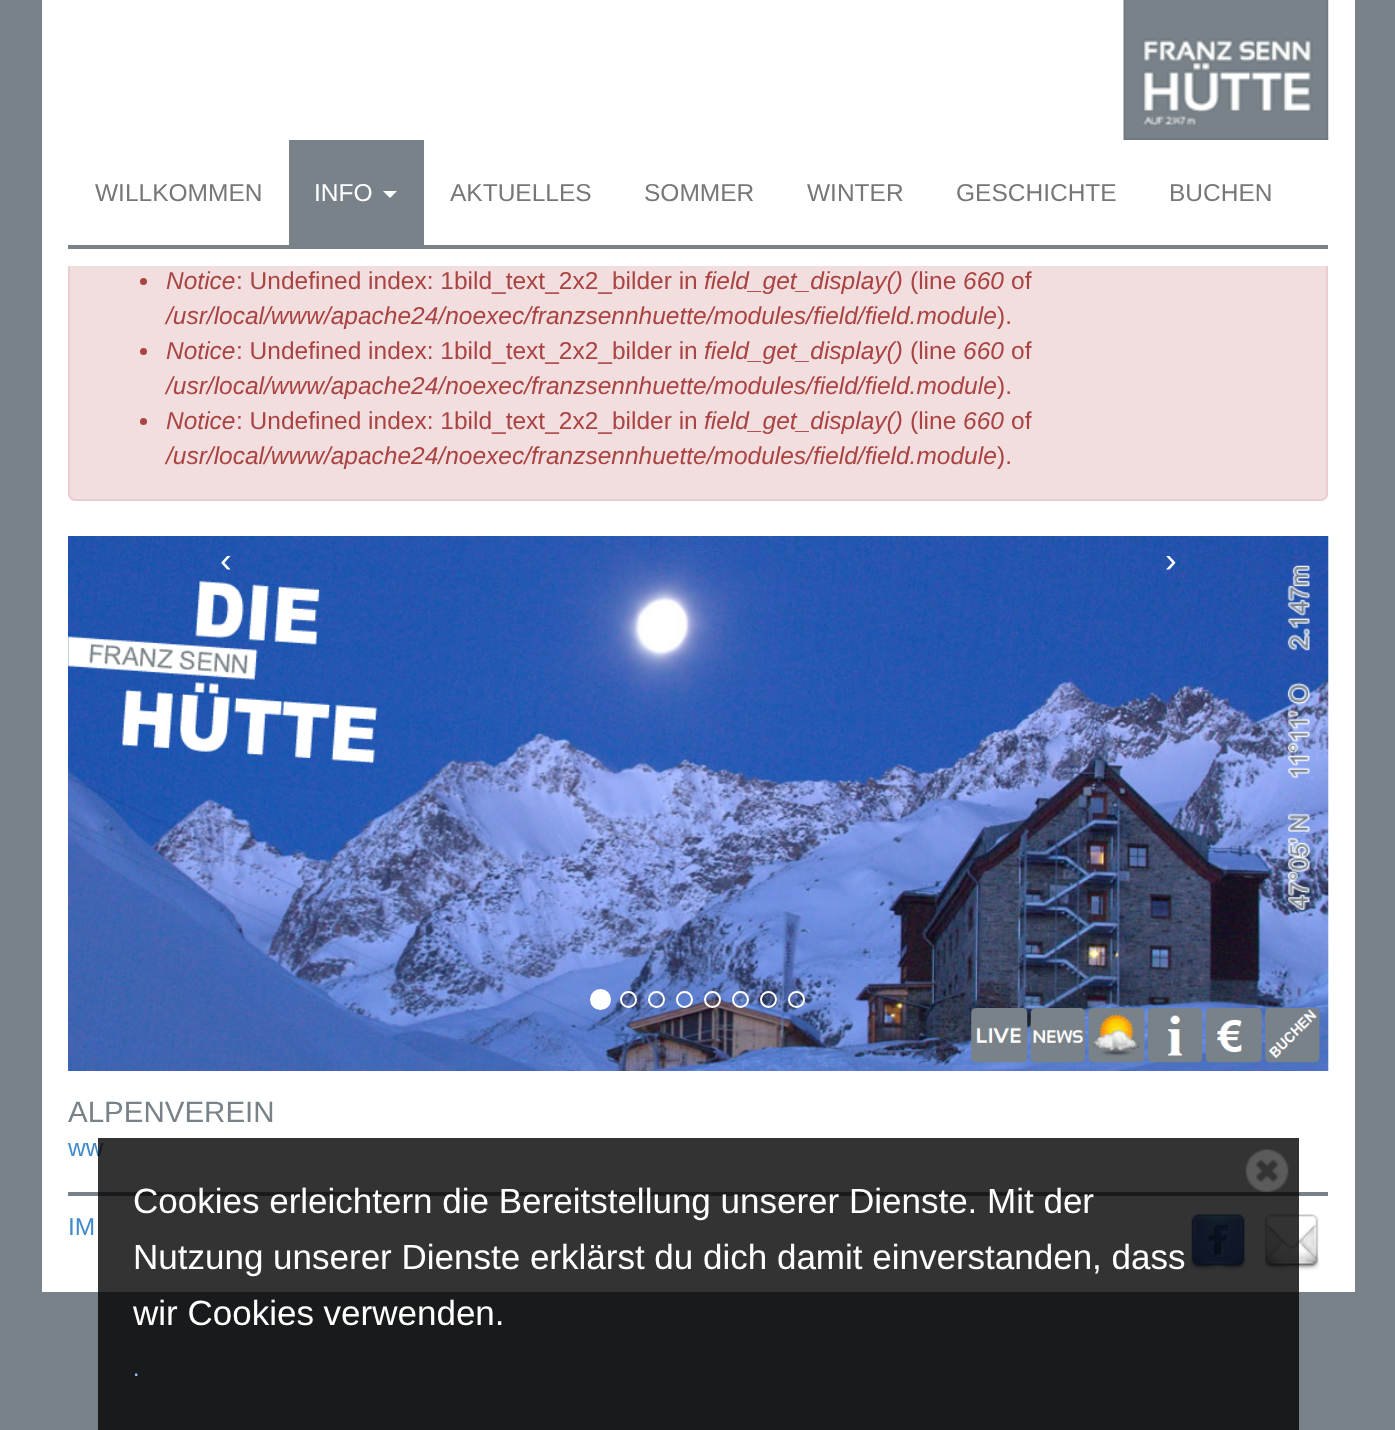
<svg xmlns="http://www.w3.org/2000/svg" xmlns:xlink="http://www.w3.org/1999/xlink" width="1395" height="1430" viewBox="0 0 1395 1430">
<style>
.cls-1{font:24.5px Liberation Sans;fill:#777777}
.cls-2{font:24.5px Liberation Sans;fill:#ffffff}
.cls-3{font:italic 24.5px Liberation Sans;fill:#a94442}
.cls-4{font:24.5px Liberation Sans;fill:#a94442}
.cls-5{font:35px Liberation Sans;fill:#ffffff}
.cls-6{font:29.5px Liberation Sans;fill:#788288}
.cls-7{font:24.5px Liberation Sans;fill:#428bca}
.cls-8{font:23px Liberation Sans;fill:#99ccff}
</style>
<rect width="100%" height="100%" fill="#788288"/>
<rect fill="#ffffff" x="42" y="266" width="1313" height="1026"/>
<rect fill="#f2dede" stroke="#ebccd1" stroke-width="2" x="69" y="166" width="1258" height="334" rx="6"/>
<rect fill="#788288" x="68" y="165" width="1260" height="101"/>
<rect fill="#ffffff" x="42" y="0" width="1313" height="266"/>
<image xlink:href="image0.png" x="1123" y="0" width="206" height="140"/>
<rect fill="#788288" x="68" y="245" width="1260" height="4"/>
<rect fill="#788288" x="289" y="140" width="135" height="105"/>
<path fill="#ffffff" d="M383 191H397L390 198Z"/>
<circle fill="#a94442" cx="143.5" cy="281.5" r="3.5"/>
<circle fill="#a94442" cx="143.5" cy="351.5" r="3.5"/>
<circle fill="#a94442" cx="143.5" cy="421.5" r="3.5"/>
<image xlink:href="image1.png" x="68" y="536" width="1261" height="535"/>
<image xlink:href="image2.png" x="68" y="580" width="310" height="183"/>
<image xlink:href="image3.png" x="1287" y="565" width="24" height="346"/>
<circle fill="#ffffff" stroke="#ffffff" stroke-width="2" cx="600.5" cy="999.5" r="9.5"/>
<circle fill="none" stroke="#ffffff" stroke-width="2" cx="628.5" cy="999.5" r="7.5"/>
<circle fill="none" stroke="#ffffff" stroke-width="2" cx="656.5" cy="999.5" r="7.5"/>
<circle fill="none" stroke="#ffffff" stroke-width="2" cx="684.5" cy="999.5" r="7.5"/>
<circle fill="none" stroke="#ffffff" stroke-width="2" cx="712.5" cy="999.5" r="7.5"/>
<circle fill="none" stroke="#ffffff" stroke-width="2" cx="740.5" cy="999.5" r="7.5"/>
<circle fill="none" stroke="#ffffff" stroke-width="2" cx="768.5" cy="999.5" r="7.5"/>
<circle fill="none" stroke="#ffffff" stroke-width="2" cx="796.5" cy="999.5" r="7.5"/>
<image xlink:href="image4.png" x="971" y="1008" width="57" height="55"/>
<image xlink:href="image5.png" x="1030" y="1008" width="55" height="55"/>
<image xlink:href="image6.png" x="1088" y="1008" width="57" height="55"/>
<image xlink:href="image7.png" x="1148" y="1008" width="55" height="55"/>
<image xlink:href="image8.png" x="1205" y="1008" width="57" height="55"/>
<image xlink:href="image9.png" x="1265" y="1008" width="55" height="55"/>
<rect fill="#788288" x="68" y="1192" width="1260" height="4"/>
<image xlink:href="image10.png" x="1190" y="1214" width="56" height="57"/>
<image xlink:href="image11.png" x="1263" y="1214" width="57" height="57"/>
<text class="cls-1" x="95" y="201">WILLKOMMEN</text>
<text class="cls-2" x="314" y="201">INFO</text>
<text class="cls-1" x="450" y="201">AKTUELLES</text>
<text class="cls-1" x="644" y="201">SOMMER</text>
<text class="cls-1" x="807" y="201">WINTER</text>
<text class="cls-1" x="956" y="201">GESCHICHTE</text>
<text class="cls-1" x="1169" y="201">BUCHEN</text>
<text class="cls-3" x="166" y="289">Notice</text>
<text class="cls-4" x="236" y="289">: Undefined index: 1bild_text_2x2_bilder in</text>
<text class="cls-3" x="704" y="289">field_get_display()</text>
<text class="cls-4" x="910" y="289">(line</text>
<text class="cls-3" x="963" y="289">660</text>
<text class="cls-4" x="1011" y="289">of</text>
<text class="cls-3" x="166" y="324">/usr/local/www/apache24/noexec/franzsennhuette/modules/field/field.module</text>
<text class="cls-4" x="997" y="324">).</text>
<text class="cls-3" x="166" y="359">Notice</text>
<text class="cls-4" x="236" y="359">: Undefined index: 1bild_text_2x2_bilder in</text>
<text class="cls-3" x="704" y="359">field_get_display()</text>
<text class="cls-4" x="910" y="359">(line</text>
<text class="cls-3" x="963" y="359">660</text>
<text class="cls-4" x="1011" y="359">of</text>
<text class="cls-3" x="166" y="394">/usr/local/www/apache24/noexec/franzsennhuette/modules/field/field.module</text>
<text class="cls-4" x="997" y="394">).</text>
<text class="cls-3" x="166" y="429">Notice</text>
<text class="cls-4" x="236" y="429">: Undefined index: 1bild_text_2x2_bilder in</text>
<text class="cls-3" x="704" y="429">field_get_display()</text>
<text class="cls-4" x="910" y="429">(line</text>
<text class="cls-3" x="963" y="429">660</text>
<text class="cls-4" x="1011" y="429">of</text>
<text class="cls-3" x="166" y="464">/usr/local/www/apache24/noexec/franzsennhuette/modules/field/field.module</text>
<text class="cls-4" x="997" y="464">).</text>
<text class="cls-5" x="220" y="572">‹</text>
<text class="cls-5" x="1165" y="572">›</text>
<text class="cls-6" x="68" y="1122">ALPENVEREIN</text>
<text class="cls-7" x="68" y="1156">ww</text>
<text class="cls-7" x="68" y="1235">IM</text>
<rect fill="#000000" fill-opacity="0.8" x="98" y="1138" width="1201" height="292"/>
<image xlink:href="image12.png" x="1245" y="1149" width="44" height="44"/>
<text class="cls-5"><tspan x="133" y="1213">Cookies erleichtern die Bereitstellung unserer Dienste. Mit der</tspan><tspan x="133" y="1269">Nutzung unserer Dienste erklärst du dich damit einverstanden, dass</tspan><tspan x="133" y="1325">wir Cookies verwenden.</tspan></text>
<text class="cls-8" x="133" y="1376">.</text>
</svg>
